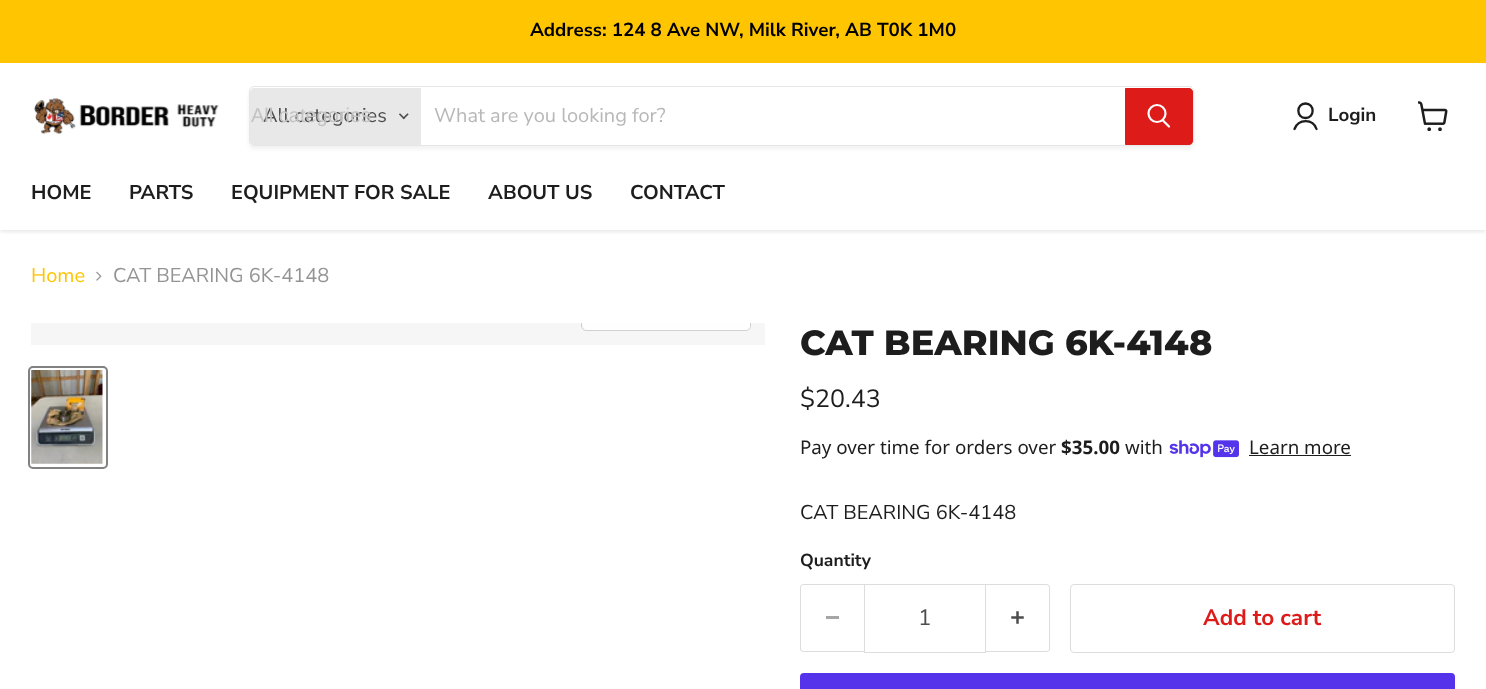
<svg xmlns="http://www.w3.org/2000/svg" xmlns:xlink="http://www.w3.org/1999/xlink" width="1486" height="689" viewBox="0 0 1486 689">
<style>
.cls-1{font:bold 18.75px Nunito Sans;fill:#000000}
.cls-2{font:20px Nunito Sans;fill:#4d4d4d}
.cls-3{font:20px Liberation Sans;fill:#c3c3c3}
.cls-4{font:20px Nunito Sans;fill:#b8b8b8}
.cls-5{font:bold 18.75px Nunito Sans;fill:#1d1d1d}
.cls-6{font:bold 20px Nunito Sans;fill:#1d1d1d}
.cls-7{font:20px Nunito Sans;fill:#ffc500}
.cls-8{font:20px Nunito Sans;fill:#949494}
.cls-9{font:800 35px Montserrat;fill:#1d1d1d}
.cls-10{font:25px Nunito Sans;fill:#1d1d1d}
.cls-11{font:18.75px Noto Sans;fill:#1d1d1d}
.cls-12{font:bold 18.75px Noto Sans;fill:#1d1d1d}
.cls-13{font:20px Nunito Sans;fill:#1d1d1d}
.cls-14{font:bold 17.5px Nunito Sans;fill:#1d1d1d}
.cls-15{font:22.5px Nunito Sans;fill:#4d4d4d}
.cls-16{font:bold 22.5px Nunito Sans;fill:#dd1c1a}
</style>
<defs>
<clipPath id="clip1"><rect x="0" y="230" width="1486" height="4"/></clipPath>
<clipPath id="clip2"><path d="M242 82H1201V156H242ZM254 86H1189C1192 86 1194 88 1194 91V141C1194 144 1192 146 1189 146H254C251 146 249 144 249 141V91C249 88 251 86 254 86Z" clip-rule="evenodd"/></clipPath>
<clipPath id="clip3"><rect x="31" y="323" width="734" height="22"/></clipPath>
</defs>
<rect width="100%" height="100%" fill="#ffffff"/>
<g clip-path="url(#clip1)">
<rect fill="#808080" fill-opacity="0.25" filter="blur(2.5px)" x="0" y="64" width="1486" height="167"/>
</g>
<rect fill="#ffc500" x="0" y="0" width="1486" height="63"/>
<image xlink:href="image0.png" x="34" y="98" width="185" height="37"/>
<g clip-path="url(#clip2)">
<rect fill="#808080" fill-opacity="0.11" filter="blur(2px)" x="249" y="89" width="945" height="60" rx="5"/>
</g>
<rect fill="none" stroke="#808080" stroke-opacity="0.2" x="249.5" y="86.5" width="944" height="59" rx="4.5"/>
<path fill="#e8e8e8" d="M254 88H421V145H254C252 145 250 143 250 141V92C250 90 252 88 254 88Z"/>
<image xlink:href="image1.png" x="399" y="113" width="10" height="7"/>
<path fill="#dd1c1a" stroke="#dd1c1a" d="M1125.5 88.5H1189C1191 88.5 1192.5 90 1192.5 92V141C1192.5 143 1191 144.5 1189 144.5H1125.5Z"/>
<path fill="none" stroke="#ffffff" stroke-width="2.2" stroke-linecap="round" d="M1169 126.5L1163 120.5"/>
<circle fill="none" stroke="#ffffff" stroke-width="2.2" cx="1157" cy="113.5" r="8.5"/>
<path fill="none" stroke="#1d1d1d" stroke-width="2.3" stroke-linecap="round" stroke-linejoin="round" d="M1305.5 118C1315 118 1315 103.5 1305.5 103.5C1296 103.5 1296 118 1305.5 118ZM1316.5 129C1313 118.5 1298.5 118.5 1294.5 129"/>
<image xlink:href="image2.png" x="1418" y="101" width="30" height="30"/>
<image xlink:href="image3.png" x="96" y="271" width="6" height="10"/>
<rect fill="#f6f6f6" x="31" y="323" width="734" height="22"/>
<g clip-path="url(#clip3)">
<rect fill="none" stroke="#d1d1d1" x="581.5" y="294.5" width="169" height="36" rx="4.5"/>
</g>
<path fill="#ffffff" fill-opacity="0.9" d="M583 323H750V326C750 328 748 330 746 330H587C585 330 583 328 583 326Z"/>
<rect fill="none" stroke="#818181" stroke-width="2" x="29" y="367" width="78" height="101" rx="4"/>
<image xlink:href="image4.png" x="31" y="370" width="72" height="94"/>
<image xlink:href="image5.png" x="1169" y="440" width="70" height="18"/>
<rect fill="#1d1d1d" x="1249" y="455" width="102" height="1"/>
<path fill="#dddddd" fill-rule="evenodd" d="M804 584H864V652H804C802 652 800 651 800 649V588C800 585 802 584 804 584ZM804 585H864V651H804C802 651 801 650 801 649V588C801 586 802 585 804 585Z"/>
<rect fill="#a6a6a6" x="826" y="616" width="13" height="3"/>
<rect fill="none" stroke="#dddddd" x="864.5" y="584.5" width="121" height="68"/>
<path fill="#dddddd" fill-rule="evenodd" d="M986 584H1046C1048 584 1050 585 1050 588V649C1050 651 1048 652 1046 652H986ZM986 585H1046C1048 585 1049 586 1049 588V649C1049 650 1048 651 1046 651H986Z"/>
<image xlink:href="image6.png" x="1011" y="611" width="13" height="13"/>
<rect fill="none" stroke="#dddddd" x="1070.5" y="584.5" width="384" height="68" rx="3.5"/>
<rect fill="#5433eb" x="800" y="673" width="655" height="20" rx="4"/>
<text class="cls-1" x="530" y="36">Address: 124 8 Ave NW, Milk River, AB T0K 1M0</text>
<text class="cls-2" x="263" y="122">All categories</text>
<text class="cls-3" x="251" y="122">All categories</text>
<text class="cls-4" x="434" y="122">What are you looking for?</text>
<text class="cls-5" x="1328" y="121">Login</text>
<text class="cls-6" x="31" y="199">HOME</text>
<text class="cls-6" x="129" y="199">PARTS</text>
<text class="cls-6" x="231" y="199">EQUIPMENT FOR SALE</text>
<text class="cls-6" x="488" y="199">ABOUT US</text>
<text class="cls-6" x="630" y="199">CONTACT</text>
<text class="cls-7" x="31" y="282">Home</text>
<text class="cls-8" x="113" y="282">CAT BEARING 6K-4148</text>
<text class="cls-9" x="800" y="355">CAT BEARING 6K-4148</text>
<text class="cls-10" x="800" y="407">$20.43</text>
<text class="cls-11" x="800" y="454">Pay over time for orders over</text>
<text class="cls-12" x="1061" y="454">$35.00</text>
<text class="cls-11" x="1125" y="454">with</text>
<text class="cls-11" x="1249" y="454">Learn more</text>
<text class="cls-13" x="800" y="519">CAT BEARING 6K-4148</text>
<text class="cls-14" x="800" y="566">Quantity</text>
<text class="cls-15" x="918" y="625">1</text>
<text class="cls-16" x="1203" y="625">Add to cart</text>
</svg>
